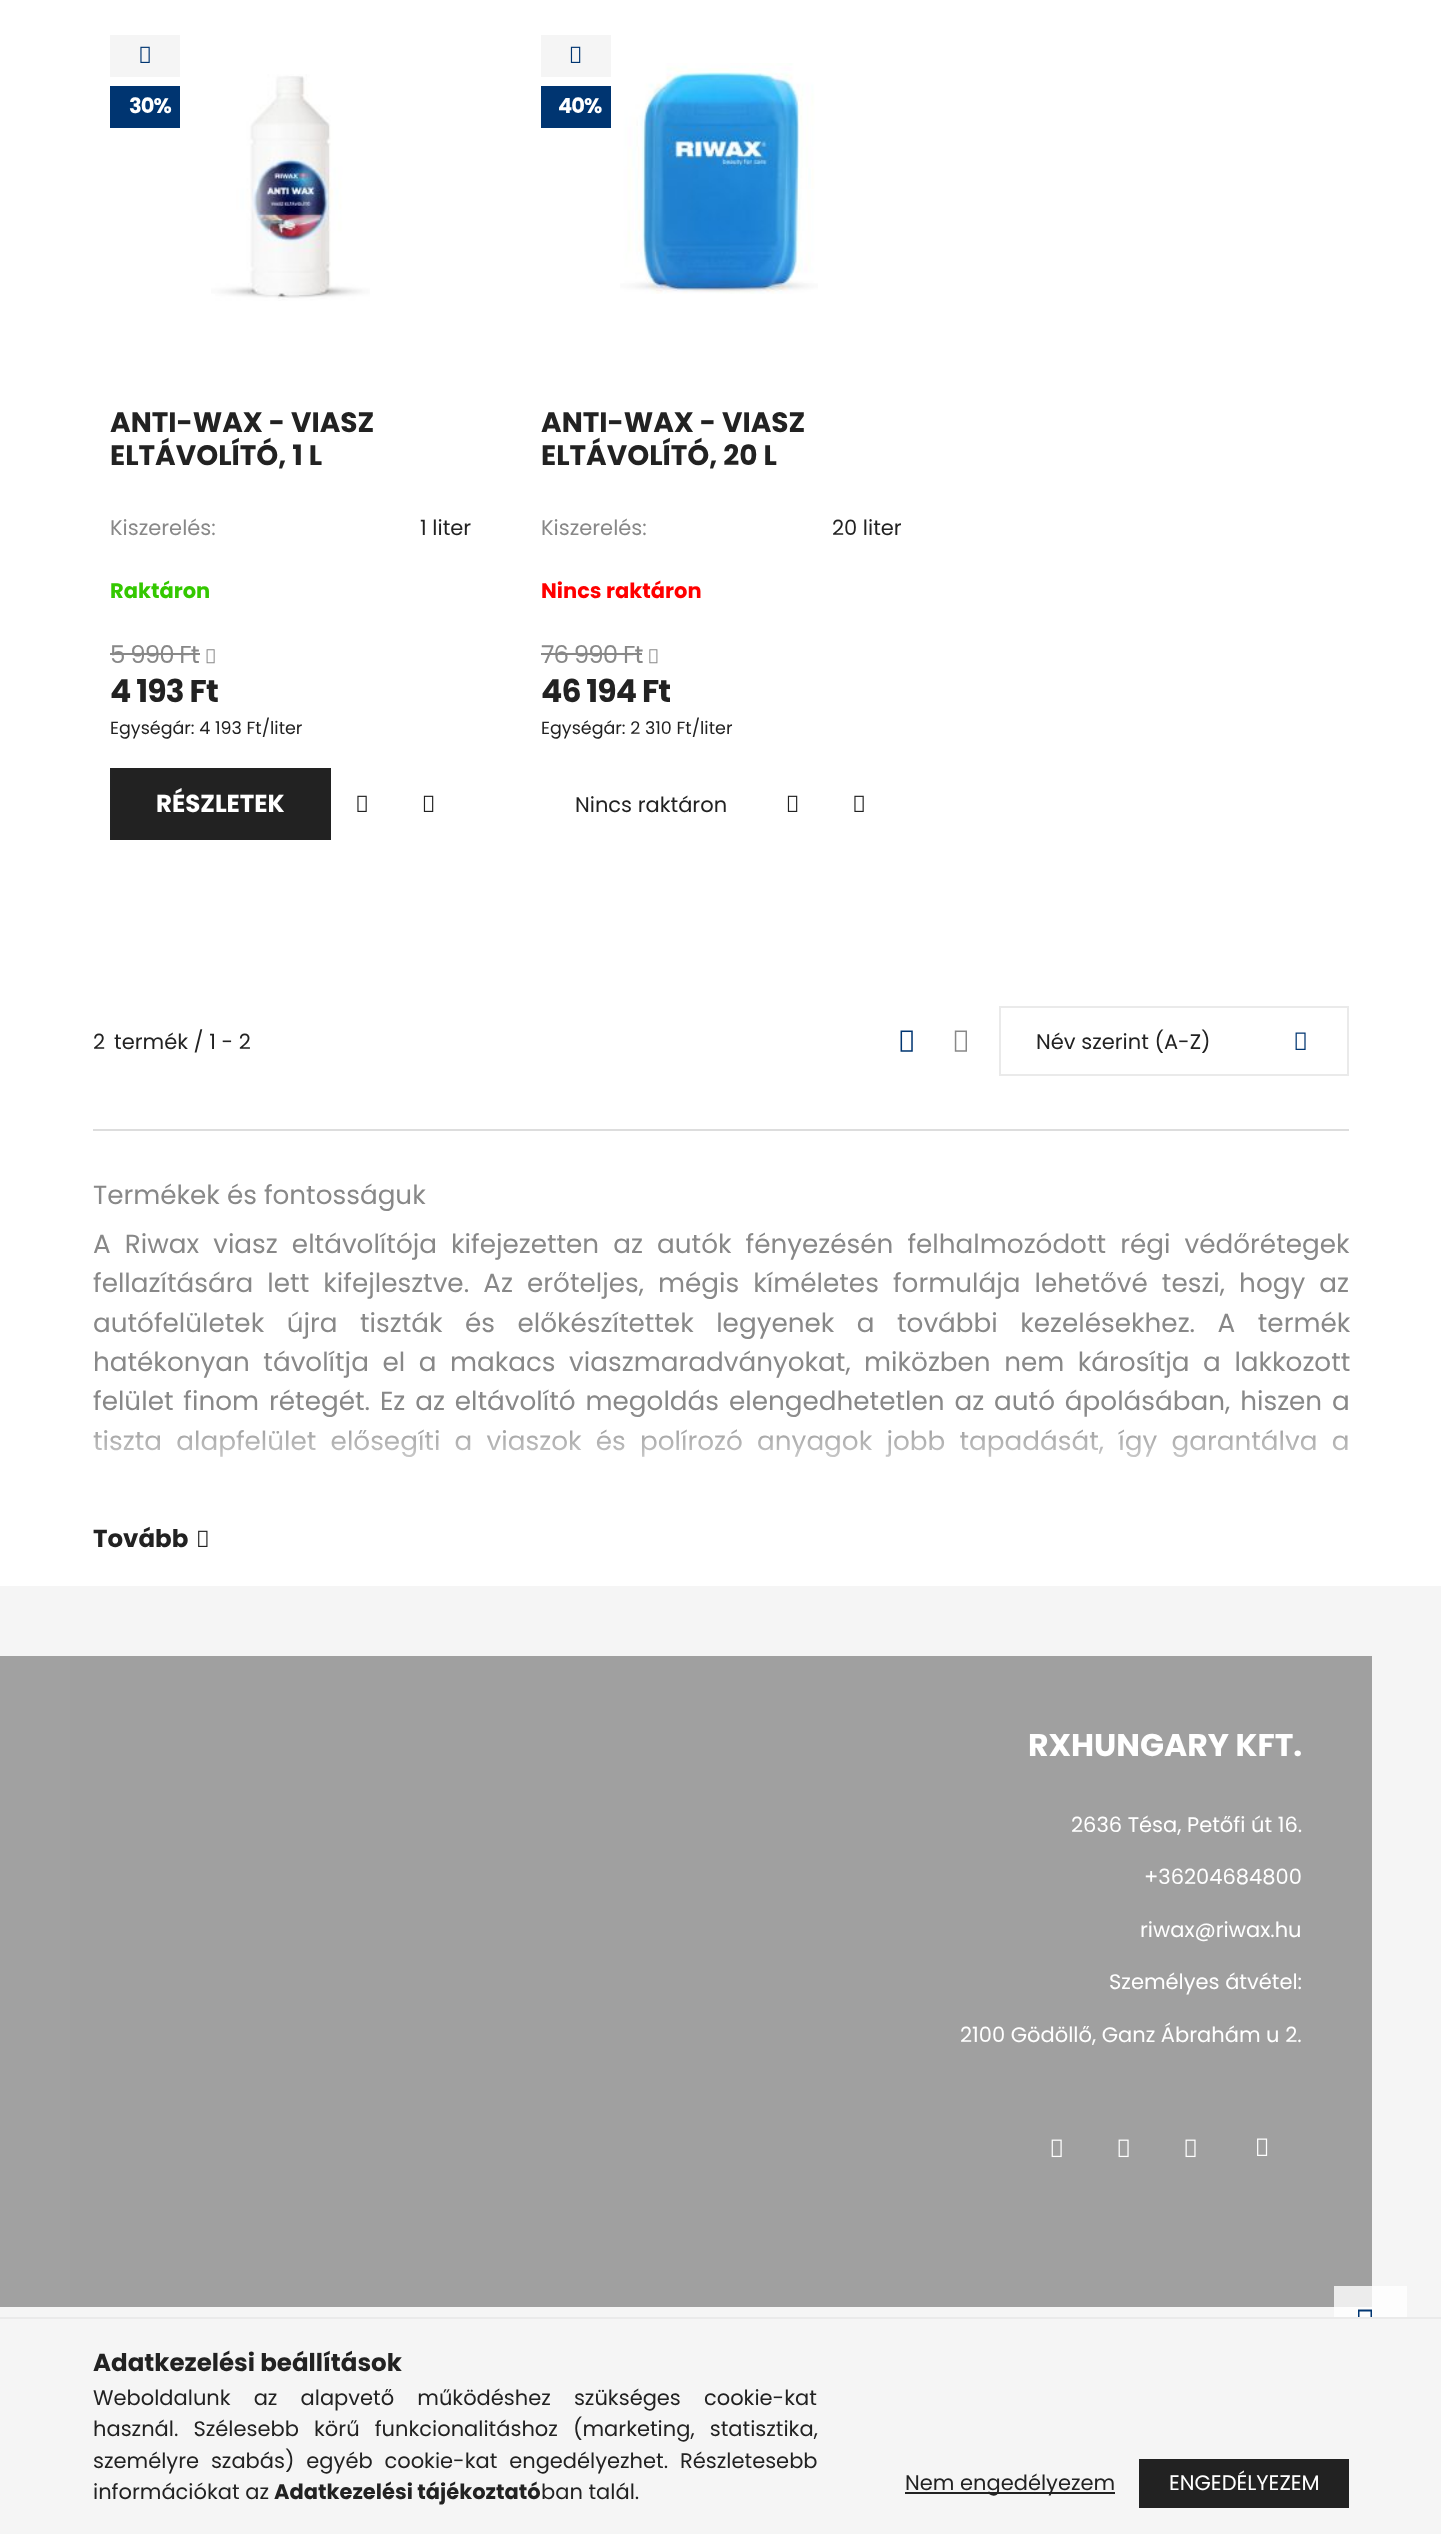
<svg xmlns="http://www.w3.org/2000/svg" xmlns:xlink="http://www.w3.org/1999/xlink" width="1441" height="2534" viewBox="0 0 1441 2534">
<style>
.cls-1{font:bold 21px Poppins;letter-spacing:-0.9px;fill:#ffffff}
.cls-2{font:bold 28px Poppins;fill:#222222}
.cls-3{font:21px Poppins;fill:#888888}
.cls-4{font:21px Poppins;fill:#222222}
.cls-5{font:bold 21px Poppins;fill:#34c800}
.cls-6{font:24.5px Poppins;letter-spacing:-0.9px;fill:#888888}
.cls-7{font:bold 31.5px Poppins;letter-spacing:-0.9px;fill:#222222}
.cls-8{font:17.5px Poppins;fill:#222222}
.cls-9{font:bold 24.5px Poppins;fill:#ffffff}
.cls-10{font:bold 21px Poppins;fill:#ff0000}
.cls-11{font:26.25px Poppins;fill:#888888}
.cls-12{font:bold 24.5px Poppins;fill:#222222}
.cls-13{font:bold 31.5px Poppins;fill:#ffffff}
.cls-14{font:21px Poppins;fill:#ffffff}
.cls-15{font:bold 21px Poppins;fill:#222222}
</style>
<defs>
<linearGradient id="g1" gradientUnits="userSpaceOnUse" x1="-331" y1="804" x2="331" y2="804"><stop offset="0" stop-color="#003571"/><stop offset="0.33" stop-color="#3589d8"/><stop offset="0.67" stop-color="#222222"/><stop offset="1" stop-color="#222222"/></linearGradient>
<linearGradient id="g2" gradientUnits="userSpaceOnUse" x1="719" y1="2483" x2="1349" y2="2483"><stop offset="0" stop-color="#003571"/><stop offset="0.33" stop-color="#3589d8"/><stop offset="0.67" stop-color="#222222"/><stop offset="1" stop-color="#222222"/></linearGradient>
<linearGradient id="g3" gradientUnits="userSpaceOnUse" x1="721" y1="1411" x2="721" y2="1498"><stop offset="0" stop-color="#ffffff" stop-opacity="0"/><stop offset="1" stop-color="#ffffff"/></linearGradient>
</defs>
<rect width="100%" height="100%" fill="#ffffff"/>
<rect fill="#f5f5f5" x="110" y="35" width="70" height="42"/>
<image xlink:href="image0.png" x="140" y="46" width="10" height="17"/>
<rect fill="#003571" x="110" y="86" width="70" height="42"/>
<image xlink:href="image1.png" x="211" y="74" width="159" height="227"/>
<rect fill="#888888" x="110" y="653" width="90" height="2"/>
<image xlink:href="image2.png" x="206" y="649" width="9" height="15"/>
<rect fill="url(#g1)" x="110" y="768" width="221" height="72"/>
<image xlink:href="image3.png" x="357" y="795" width="10" height="17"/>
<image xlink:href="image4.png" x="423" y="795" width="11" height="17"/>
<rect fill="#f5f5f5" x="541" y="35" width="70" height="42"/>
<image xlink:href="image5.png" x="570" y="46" width="11" height="17"/>
<rect fill="#003571" x="541" y="86" width="70" height="42"/>
<image xlink:href="image6.png" x="620" y="63" width="198" height="231"/>
<rect fill="#888888" x="541" y="653" width="101" height="2"/>
<image xlink:href="image7.png" x="649" y="649" width="9" height="15"/>
<image xlink:href="image4.png" x="787" y="795" width="11" height="17"/>
<image xlink:href="image3.png" x="854" y="795" width="10" height="17"/>
<image xlink:href="image8.png" x="900" y="1030" width="13" height="22"/>
<image xlink:href="image9.png" x="954" y="1030" width="13" height="22"/>
<rect fill="none" stroke="#eaeaea" stroke-width="2" x="1000" y="1007" width="348" height="68"/>
<image xlink:href="image10.png" x="1295" y="1032" width="11" height="18"/>
<rect fill="#dddddd" x="93" y="1129" width="1256" height="2"/>
<image xlink:href="image11.png" x="198" y="1530" width="10" height="17"/>
<rect fill="#f5f5f5" x="0" y="1586" width="1441" height="731"/>
<rect fill="#fdfdfd" x="1334" y="2286" width="73" height="31"/>
<rect fill="#a0a0a0" x="70" y="1656" width="1302" height="651"/>
<rect fill="#ececec" x="1334" y="2286" width="38" height="21"/>
<rect fill="#a1a1a1" x="0" y="1656" width="70" height="651"/>
<image xlink:href="image12.png" x="1051" y="2139" width="11" height="19"/>
<image xlink:href="image13.png" x="1118" y="2139" width="11" height="19"/>
<image xlink:href="image14.png" x="1185" y="2139" width="11" height="19"/>
<image xlink:href="image15.png" x="1257" y="2138" width="11" height="18"/>
<path fill="#003571" d="M1358 2334.5V2309.5H1372V2334.5ZM1359.5 2332.5H1370.5V2311.5H1359.5Z"/>
<rect fill="#f5f5f5" x="0" y="2319" width="1441" height="215"/>
<rect fill="#eaeaea" x="0" y="2317" width="1441" height="2"/>
<rect fill="#222222" x="905" y="2492" width="210" height="2"/>
<rect fill="url(#g2)" x="1139" y="2459" width="210" height="49"/>
<text class="cls-1" x="129" y="113">30%</text>
<text class="cls-2"><tspan x="110" y="432">ANTI-WAX - VIASZ</tspan><tspan x="110" y="465">ELTÁVOLÍTÓ, 1 L</tspan></text>
<text class="cls-3" x="110" y="535">Kiszerelés:</text>
<text class="cls-4" x="420" y="535">1 liter</text>
<text class="cls-5" x="110" y="598">Raktáron</text>
<text class="cls-6" x="110" y="663">5 990 Ft</text>
<text class="cls-7" x="110" y="702">4 193 Ft</text>
<text class="cls-8" x="110" y="734">Egységár: 4 193 Ft/liter</text>
<text class="cls-9" x="156" y="812">RÉSZLETEK</text>
<text class="cls-1" x="558" y="113">40%</text>
<text class="cls-2"><tspan x="541" y="432">ANTI-WAX - VIASZ</tspan><tspan x="541" y="465">ELTÁVOLÍTÓ, 20 L</tspan></text>
<text class="cls-3" x="541" y="535">Kiszerelés:</text>
<text class="cls-4" x="832" y="535">20 liter</text>
<text class="cls-10" x="541" y="598">Nincs raktáron</text>
<text class="cls-6" x="541" y="663">76 990 Ft</text>
<text class="cls-7" x="541" y="702">46 194 Ft</text>
<text class="cls-8" x="541" y="734">Egységár: 2 310 Ft/liter</text>
<text class="cls-4" x="575" y="812">Nincs raktáron</text>
<text class="cls-4" x="93" y="1049">2</text>
<text class="cls-4" x="114" y="1049">termék / 1 - 2</text>
<text class="cls-4" x="1036" y="1049">Név szerint (A-Z)</text>
<text class="cls-11"><tspan x="93" y="1204">Termékek és fontosságuk</tspan><tspan x="93" y="1253" word-spacing="7.1">A Riwax viasz eltávolítója kifejezetten az autók fényezésén felhalmozódott régi védőrétegek</tspan><tspan x="93" y="1292" word-spacing="7.1">fellazítására lett kifejlesztve. Az erőteljes, mégis kíméletes formulája lehetővé teszi, hogy az</tspan><tspan x="93" y="1332" word-spacing="15.5">autófelületek újra tiszták és előkészítettek legyenek a további kezelésekhez. A termék</tspan><tspan x="93" y="1371" word-spacing="6.5">hatékonyan távolítja el a makacs viaszmaradványokat, miközben nem károsítja a lakkozott</tspan><tspan x="93" y="1410" word-spacing="2.9">felület finom rétegét. Ez az eltávolító megoldás elengedhetetlen az autó ápolásában, hiszen a</tspan><tspan x="93" y="1450" word-spacing="7.25">tiszta alapfelület elősegíti a viaszok és polírozó anyagok jobb tapadását, így garantálva a</tspan></text>
<rect fill="url(#g3)" x="93" y="1413" width="1255" height="45"/>
<text class="cls-12" x="93" y="1547">Tovább</text>
<text class="cls-13" x="1028" y="1756">RXHUNGARY KFT.</text>
<text class="cls-14" x="1071" y="1832">2636 Tésa, Petőfi út 16.</text>
<text class="cls-14" x="1144" y="1884">+36204684800</text>
<text class="cls-14" x="1140" y="1937">riwax@riwax.hu</text>
<text class="cls-14" x="1109" y="1989">Személyes átvétel:</text>
<text class="cls-14" x="960" y="2042">2100 Gödöllő, Ganz Ábrahám u 2.</text>
<text class="cls-12" x="93" y="2371">Adatkezelési beállítások</text>
<text class="cls-4"><tspan x="93" y="2405" word-spacing="17.5">Weboldalunk az alapvető működéshez szükséges cookie-kat</tspan><tspan x="93" y="2436" word-spacing="9.5">használ. Szélesebb körű funkcionalitáshoz (marketing, statisztika,</tspan><tspan x="93" y="2468" word-spacing="6.25">személyre szabás) egyéb cookie-kat engedélyezhet. Részletesebb</tspan><tspan x="93" y="2499">információkat az</tspan></text>
<text class="cls-15" x="274" y="2499">Adatkezelési tájékoztató</text>
<text class="cls-4" x="541" y="2499">ban talál.</text>
<text class="cls-4" x="905" y="2490">Nem engedélyezem</text>
<text class="cls-14" x="1169" y="2490">ENGEDÉLYEZEM</text>
</svg>
